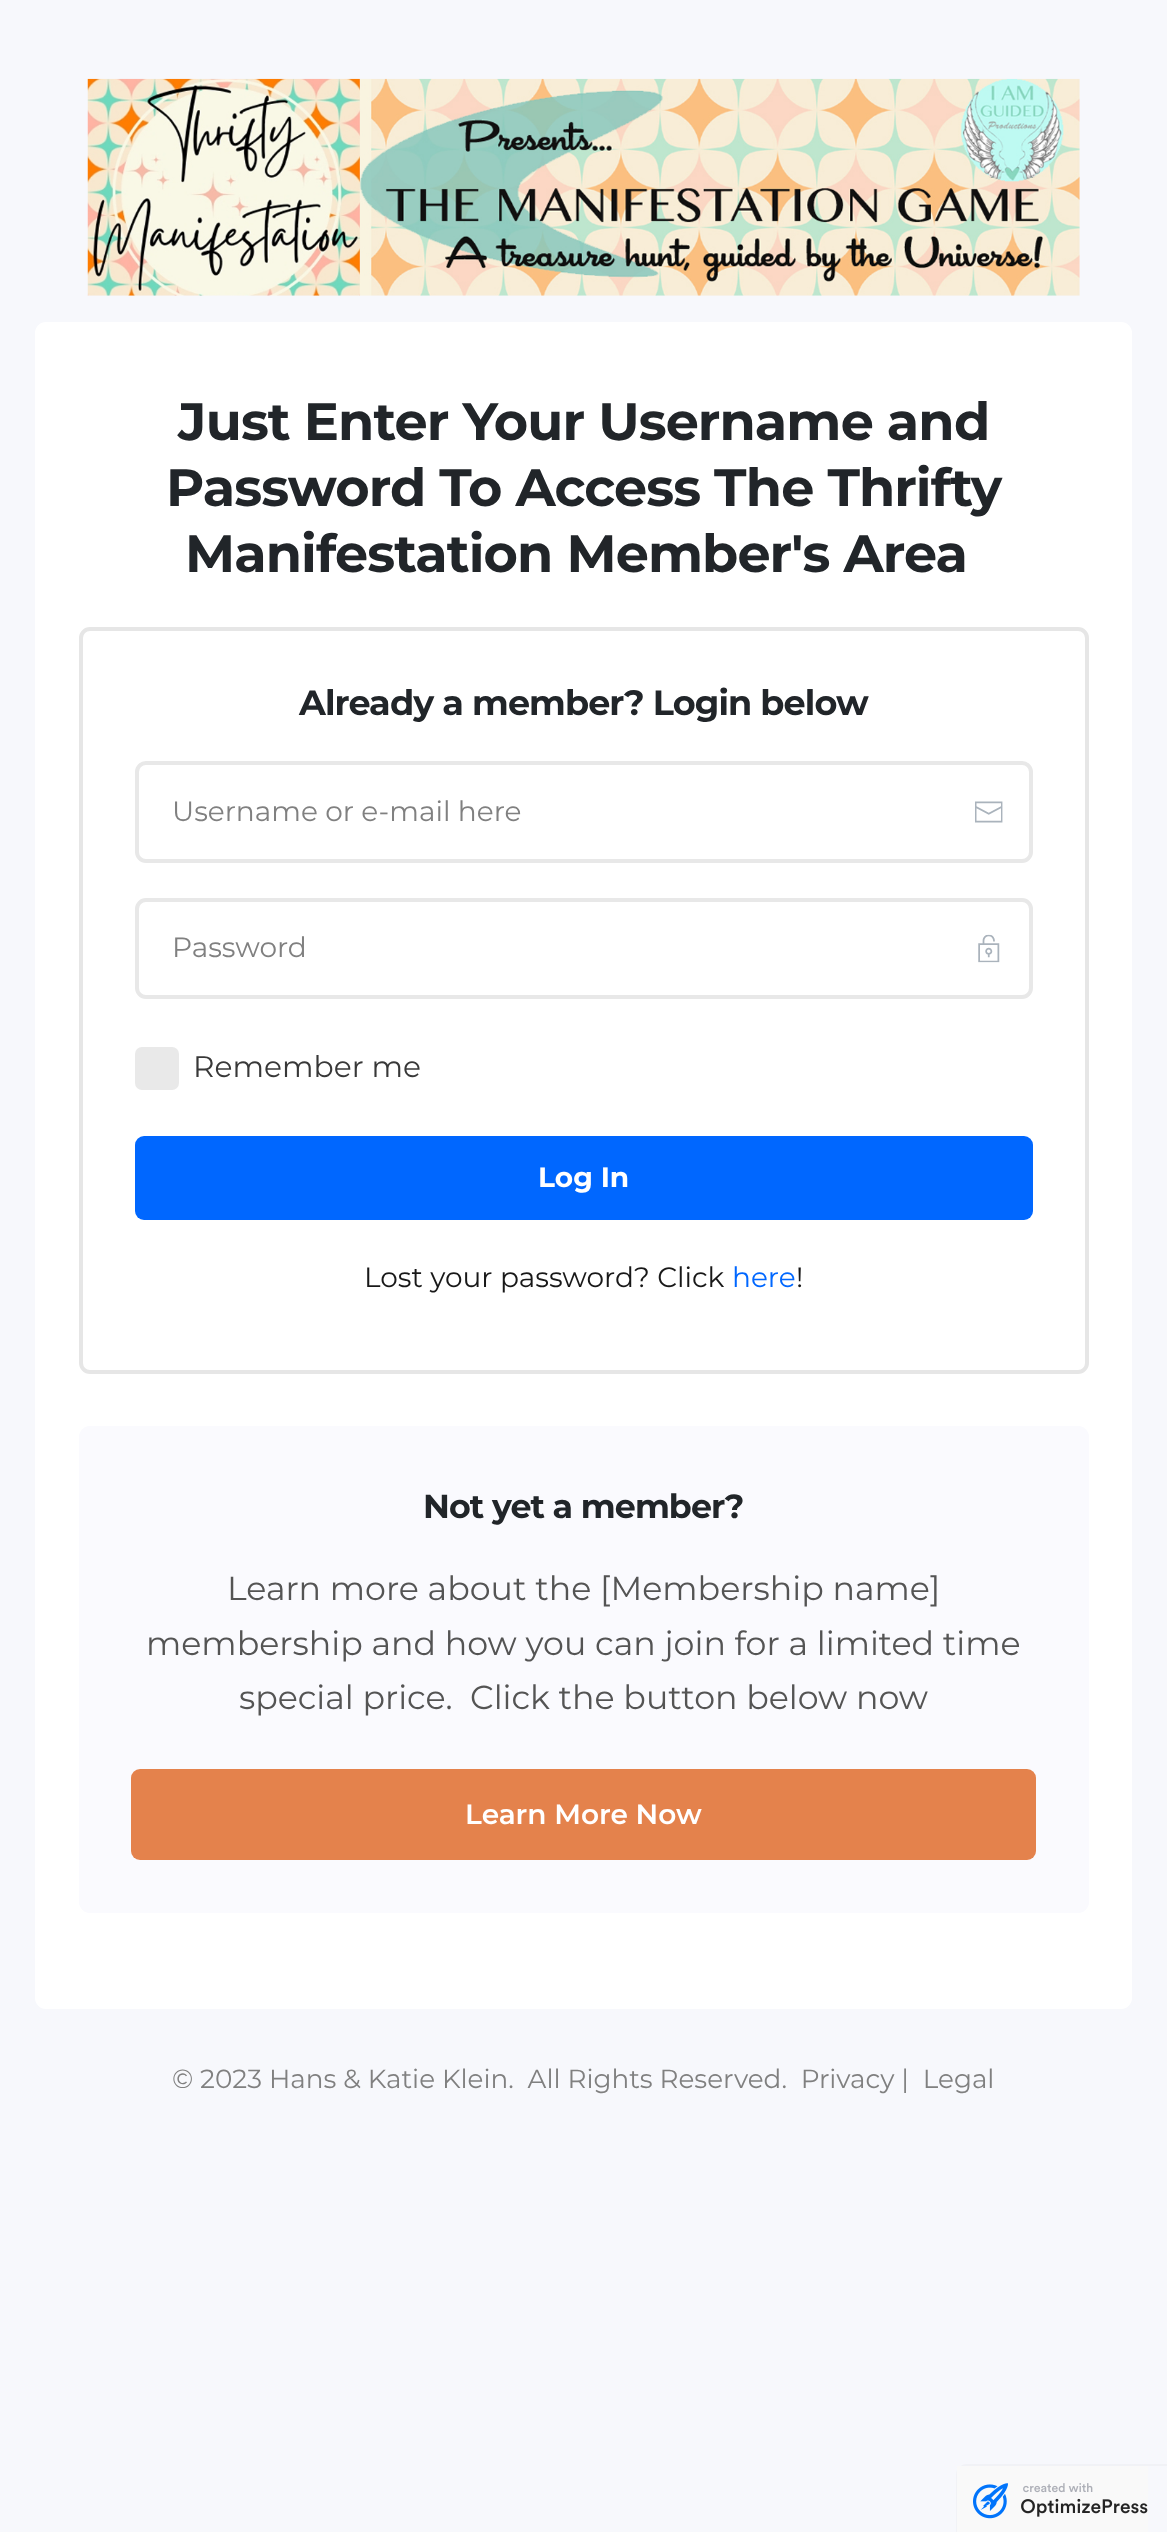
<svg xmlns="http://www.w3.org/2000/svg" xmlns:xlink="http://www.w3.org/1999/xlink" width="1167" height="2532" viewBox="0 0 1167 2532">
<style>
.cls-1{font:bold 52.5px Montserrat;letter-spacing:-0.9px;fill:#212529}
.cls-2{font:bold 35px Montserrat;letter-spacing:-0.9px;fill:#212529}
.cls-3{font:28px Montserrat;fill:#808080}
.cls-4{font:29.75px Montserrat;fill:#383838}
.cls-5{font:bold 28px Montserrat;fill:#ffffff}
.cls-6{font:28px Montserrat;fill:#181818}
.cls-7{font:28px Montserrat;fill:#0067ff}
.cls-8{font:bold 33.25px Montserrat;letter-spacing:-0.9px;fill:#212529}
.cls-9{font:33.25px Montserrat;fill:#545454}
.cls-10{font:600 28px Montserrat;fill:#ffffff}
.cls-11{font:26.25px Montserrat;fill:#808080}
</style>
<rect width="100%" height="100%" fill="#f7f8fc"/>
<image xlink:href="image0.png" x="87" y="78" width="993" height="218"/>
<rect fill="#ffffff" x="35" y="322" width="1097" height="1687" rx="11"/>
<rect fill="none" stroke="#e6e6e6" stroke-width="4" x="81" y="629" width="1006" height="743" rx="9"/>
<rect fill="none" stroke="#e8e8e8" stroke-width="4" x="137" y="763" width="894" height="98" rx="9"/>
<image xlink:href="image1.png" x="975" y="801" width="28" height="22"/>
<rect fill="none" stroke="#e8e8e8" stroke-width="4" x="137" y="900" width="894" height="97" rx="9"/>
<image xlink:href="image2.png" x="978" y="934" width="22" height="29"/>
<rect fill="#e9e9e9" x="135" y="1047" width="44" height="43" rx="7"/>
<rect fill="#0067ff" x="135" y="1136" width="898" height="84" rx="9"/>
<rect fill="#fafafe" x="79" y="1426" width="1010" height="487" rx="11"/>
<rect fill="#e4824c" x="131" y="1769" width="905" height="91" rx="9"/>
<path fill="none" stroke="#f1f2f6" stroke-width="2" d="M967 2465H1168V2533H957V2475C957 2469.5 961.5 2465 967 2465Z"/>
<image xlink:href="image3.png" x="957" y="2466" width="191" height="66"/>
<text class="cls-1" x="178" y="440">Just Enter Your Username and</text>
<text class="cls-1" x="166" y="506">Password To Access The Thrifty</text>
<text class="cls-1" x="185" y="572">Manifestation Member's Area</text>
<text class="cls-2" x="299" y="715">Already a member? Login below</text>
<text class="cls-3" x="172" y="821">Username or e-mail here</text>
<text class="cls-3" x="172" y="957">Password</text>
<text class="cls-4" x="193" y="1077">Remember me</text>
<text class="cls-5" x="538" y="1187">Log In</text>
<text class="cls-6" x="364" y="1287">Lost your password? Click</text>
<text class="cls-7" x="732" y="1287">here</text>
<text class="cls-6" x="796" y="1287">!</text>
<text class="cls-8" x="423" y="1518">Not yet a member?</text>
<text class="cls-9" x="227" y="1600">Learn more about the [Membership name]</text>
<text class="cls-9" x="146" y="1655">membership and how you can join for a limited time</text>
<text class="cls-9" xml:space="preserve" x="239" y="1709">special price.  Click the button below now</text>
<text class="cls-10" x="465" y="1824">Learn More Now</text>
<text class="cls-11" xml:space="preserve" x="172" y="2088">© 2023 Hans &amp; Katie Klein.  All Rights Reserved.  Privacy |  Legal</text>
</svg>
